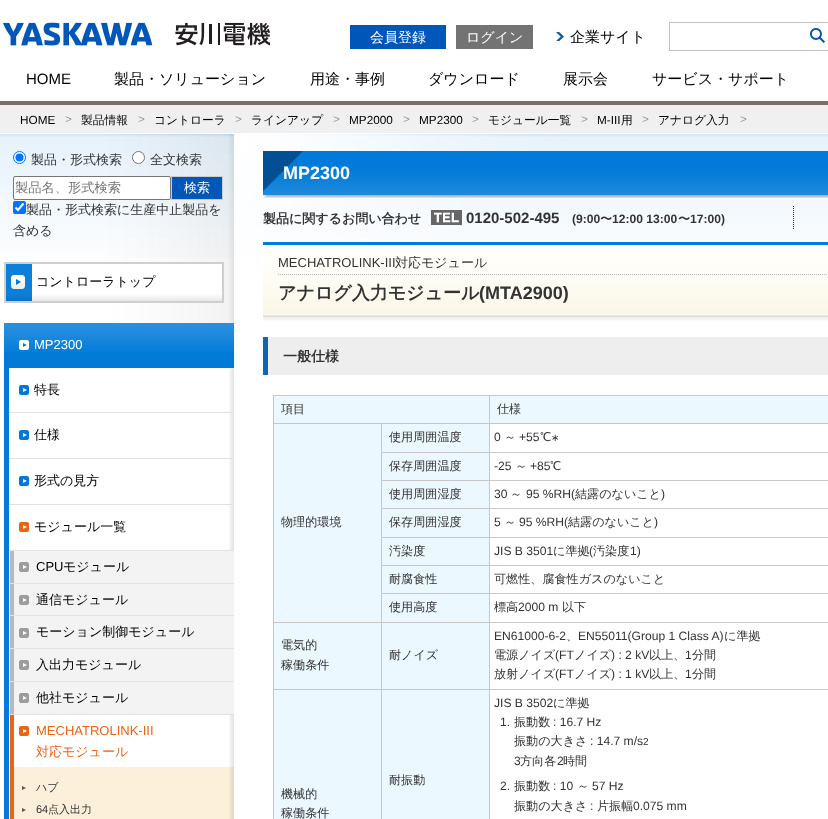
<svg xmlns="http://www.w3.org/2000/svg" xmlns:xlink="http://www.w3.org/1999/xlink" width="828" height="819" viewBox="0 0 828 819">
<style>
.cls-1{font:500 14px WenQuanYi Zen Hei;fill:#ffffff}
.cls-2{font:500 15px WenQuanYi Zen Hei;fill:#000000}
.cls-3{font:15px Liberation Sans;fill:#000000}
.cls-4{font:11.75px Liberation Sans;fill:#000000}
.cls-5{font:11.75px Liberation Sans;fill:#969696}
.cls-6{font:500 11.75px WenQuanYi Zen Hei;fill:#000000}
.cls-7{font:500 13px WenQuanYi Zen Hei;fill:#333333}
.cls-8{font:500 13.25px WenQuanYi Zen Hei;fill:#757575}
.cls-9{font:500 13px WenQuanYi Zen Hei;fill:#ffffff}
.cls-10{font:500 13px WenQuanYi Zen Hei;fill:#000000}
.cls-11{font:13px Liberation Sans;fill:#ffffff}
.cls-12{font:13px Liberation Sans;fill:#000000}
.cls-13{font:13px Liberation Sans;fill:#ed6311}
.cls-14{font:500 13px WenQuanYi Zen Hei;fill:#ed6311}
.cls-15{font:500 11px WenQuanYi Zen Hei;fill:#333333}
.cls-16{font:11px Liberation Sans;fill:#333333}
.cls-17{font:bold 18px Liberation Sans;fill:#ffffff}
.cls-18{font:bold 13px WenQuanYi Zen Hei;fill:#333333}
.cls-19{font:bold 15px Liberation Sans;fill:#333333}
.cls-20{font:bold 12.1px Liberation Sans;fill:#333333}
.cls-21{font:bold 12.1px WenQuanYi Zen Hei;fill:#333333}
.cls-22{font:13px Liberation Sans;fill:#333333}
.cls-23{font:bold 18px WenQuanYi Zen Hei;fill:#333333}
.cls-24{font:bold 18px Liberation Sans;fill:#333333}
.cls-25{font:bold 14px WenQuanYi Zen Hei;fill:#333333}
.cls-26{font:500 12.1px WenQuanYi Zen Hei;fill:#333333}
.cls-27{font:12.1px Liberation Sans;fill:#333333}
.cls-28{font:10px DejaVu Sans;fill:#333333}
.cls-29{font:10px Liberation Sans;fill:#333333}
</style>
<rect width="100%" height="100%" fill="#ffffff"/>
<rect fill="#7a6e67" x="0" y="101" width="828" height="4"/>
<image xlink:href="image0.png" x="3" y="22" width="268" height="24"/>
<rect fill="#0056b9" x="350" y="25" width="96" height="24"/>
<rect fill="#737373" x="456" y="25" width="77" height="24"/>
<image xlink:href="image1.png" x="556" y="32" width="8" height="9"/>
<rect fill="none" stroke="#c0c0c0" x="669.5" y="22.5" width="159" height="28"/>
<image xlink:href="image2.png" x="810" y="28" width="15" height="15"/>
<rect fill="#f0f0f0" x="0" y="105" width="828" height="28"/>
<image xlink:href="image3.png" x="0" y="258" width="828" height="561"/>
<image xlink:href="image4.png" x="0" y="134" width="828" height="124"/>
<circle fill="#ffffff" stroke="#0075ff" cx="19.5" cy="157.5" r="6"/>
<circle fill="#0075ff" cx="19.5" cy="157.5" r="4"/>
<circle fill="#ffffff" stroke="#767676" cx="138.5" cy="157.5" r="6"/>
<rect fill="#ffffff" stroke="#767676" x="13.5" y="176.5" width="157" height="23" rx="1.5"/>
<rect fill="#0056b9" stroke="#cccccc" x="171.5" y="176.5" width="51" height="23"/>
<rect fill="#0075ff" x="13" y="201" width="13" height="13" rx="2"/>
<path fill="none" stroke="#ffffff" stroke-width="2.1" d="M15.5 207.5L18 210L23.5 203.5"/>
<rect fill="#cfcfcf" x="4" y="301" width="220" height="2"/>
<rect fill="#cfcfcf" x="4" y="262" width="220" height="2"/>
<rect fill="#cfcfcf" x="222" y="262" width="2" height="39"/>
<image xlink:href="image5.png" x="6" y="264" width="216" height="37"/>
<rect fill="#cfcfcf" x="4" y="264" width="2" height="37"/>
<image xlink:href="image6.png" x="11" y="275" width="14" height="14"/>
<rect fill="#017ad8" x="4" y="352" width="230" height="467"/>
<image xlink:href="image7.png" x="4" y="323" width="230" height="29"/>
<image xlink:href="image8.png" x="19" y="340" width="10" height="10"/>
<rect fill="#ffffff" x="9" y="368" width="220" height="44"/>
<image xlink:href="image9.png" x="229" y="368" width="5" height="44"/>
<image xlink:href="image10.png" x="19" y="385" width="10" height="10"/>
<rect fill="#e2e2e2" x="9" y="412" width="225" height="1"/>
<rect fill="#ffffff" x="9" y="413" width="220" height="45"/>
<image xlink:href="image11.png" x="229" y="413" width="5" height="45"/>
<image xlink:href="image10.png" x="19" y="430" width="10" height="10"/>
<rect fill="#e2e2e2" x="9" y="458" width="225" height="1"/>
<rect fill="#ffffff" x="9" y="459" width="220" height="45"/>
<image xlink:href="image11.png" x="229" y="459" width="5" height="45"/>
<image xlink:href="image10.png" x="19" y="476" width="10" height="10"/>
<rect fill="#e2e2e2" x="9" y="504" width="225" height="1"/>
<rect fill="#ffffff" x="9" y="505" width="220" height="314"/>
<image xlink:href="image11.png" x="229" y="505" width="5" height="45"/>
<image xlink:href="image12.png" x="19" y="522" width="10" height="10"/>
<rect fill="#e2e2e2" x="9" y="550" width="225" height="1"/>
<rect fill="#e2e2e2" x="10" y="583" width="224" height="1"/>
<rect fill="#f3f3f3" x="14" y="551" width="220" height="32"/>
<image xlink:href="image13.png" x="19" y="562" width="10" height="10"/>
<rect fill="#b5bac0" x="10" y="551" width="4" height="32"/>
<rect fill="#e2e2e2" x="10" y="615" width="224" height="1"/>
<rect fill="#f3f3f3" x="14" y="584" width="220" height="31"/>
<image xlink:href="image13.png" x="19" y="595" width="10" height="10"/>
<rect fill="#b5bac0" x="10" y="584" width="4" height="31"/>
<rect fill="#e2e2e2" x="10" y="648" width="224" height="1"/>
<rect fill="#f3f3f3" x="14" y="616" width="220" height="32"/>
<image xlink:href="image13.png" x="19" y="628" width="10" height="10"/>
<rect fill="#b5bac0" x="10" y="616" width="4" height="32"/>
<rect fill="#e2e2e2" x="10" y="681" width="224" height="1"/>
<rect fill="#f3f3f3" x="14" y="649" width="220" height="32"/>
<image xlink:href="image13.png" x="19" y="660" width="10" height="10"/>
<rect fill="#b5bac0" x="10" y="649" width="4" height="32"/>
<rect fill="#e2e2e2" x="10" y="714" width="224" height="1"/>
<rect fill="#f3f3f3" x="14" y="682" width="220" height="32"/>
<image xlink:href="image13.png" x="19" y="693" width="10" height="10"/>
<rect fill="#b5bac0" x="10" y="682" width="4" height="32"/>
<image xlink:href="image14.png" x="229" y="715" width="5" height="52"/>
<image xlink:href="image12.png" x="19" y="726" width="10" height="10"/>
<rect fill="#ed6311" x="10" y="715" width="4" height="52"/>
<rect fill="#fcf0da" x="14" y="767" width="215" height="52"/>
<image xlink:href="image15.png" x="229" y="767" width="5" height="52"/>
<path fill="#ed6311" d="M10 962V767H14V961Z"/>
<image xlink:href="image16.png" x="22" y="786" width="4" height="4"/>
<image xlink:href="image16.png" x="22" y="808" width="4" height="4"/>
<image xlink:href="image17.png" x="263" y="195" width="565" height="3"/>
<image xlink:href="image18.png" x="263" y="151" width="565" height="44"/>
<path fill="none" stroke="#333333" stroke-dasharray="1 1" d="M793.5 206V230"/>
<image xlink:href="image19.png" x="431" y="210" width="31" height="15"/>
<image xlink:href="image20.png" x="263" y="245" width="565" height="76"/>
<rect fill="#007ad8" x="263" y="242" width="565" height="3"/>
<path fill="none" stroke="#bbbbbb" stroke-dasharray="1 1" d="M278 274.5H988"/>
<rect fill="#eeeeee" x="268" y="337" width="560" height="38"/>
<rect fill="#1065b2" x="263" y="337" width="5" height="38"/>
<rect fill="#c7c7c7" x="273" y="395" width="555" height="1"/>
<rect fill="#c7c7c7" x="273" y="395" width="1" height="424"/>
<rect fill="#ecf8ff" x="274" y="396" width="215" height="27"/>
<rect fill="#c7c7c7" x="489" y="396" width="1" height="423"/>
<rect fill="#c7c7c7" x="274" y="423" width="554" height="1"/>
<rect fill="#ecf8ff" x="490" y="396" width="338" height="27"/>
<rect fill="#ecf8ff" x="382" y="424" width="107" height="28"/>
<rect fill="#c7c7c7" x="382" y="452" width="446" height="1"/>
<rect fill="#ecf8ff" x="274" y="424" width="107" height="198"/>
<rect fill="#c7c7c7" x="381" y="424" width="1" height="395"/>
<rect fill="#c7c7c7" x="274" y="622" width="554" height="1"/>
<rect fill="#ecf8ff" x="382" y="453" width="107" height="27"/>
<rect fill="#c7c7c7" x="382" y="480" width="446" height="1"/>
<rect fill="#ecf8ff" x="382" y="481" width="107" height="27"/>
<rect fill="#c7c7c7" x="382" y="508" width="446" height="1"/>
<rect fill="#ecf8ff" x="382" y="509" width="107" height="28"/>
<rect fill="#c7c7c7" x="382" y="537" width="446" height="1"/>
<rect fill="#ecf8ff" x="382" y="538" width="107" height="27"/>
<rect fill="#c7c7c7" x="382" y="565" width="446" height="1"/>
<rect fill="#ecf8ff" x="382" y="566" width="107" height="27"/>
<rect fill="#c7c7c7" x="382" y="593" width="446" height="1"/>
<rect fill="#ecf8ff" x="382" y="594" width="107" height="28"/>
<rect fill="#ecf8ff" x="274" y="623" width="107" height="66"/>
<rect fill="#c7c7c7" x="274" y="689" width="554" height="1"/>
<rect fill="#ecf8ff" x="382" y="623" width="107" height="66"/>
<rect fill="#ecf8ff" x="382" y="690" width="107" height="129"/>
<rect fill="#ecf8ff" x="274" y="690" width="107" height="129"/>
<text class="cls-1" x="370" y="42">会員登録</text>
<text class="cls-1" x="466" y="42">ログイン</text>
<text class="cls-2" x="570" y="42">企業サイト</text>
<text class="cls-3" x="26" y="84">HOME</text>
<text class="cls-2" x="114" y="84">製品・ソリューション</text>
<text class="cls-2" x="310" y="84">用途・事例</text>
<text class="cls-2" x="428" y="84">ダウンロード</text>
<text class="cls-2" x="563" y="84">展示会</text>
<text class="cls-2" x="652" y="84">サービス・サポート</text>
<text class="cls-4" x="20" y="124">HOME</text>
<text class="cls-5" x="65" y="123">&gt;</text>
<text class="cls-6" x="81" y="124">製品情報</text>
<text class="cls-5" x="138" y="123">&gt;</text>
<text class="cls-6" x="154" y="124">コントローラ</text>
<text class="cls-5" x="235" y="123">&gt;</text>
<text class="cls-6" x="251" y="124">ラインアップ</text>
<text class="cls-5" x="333" y="123">&gt;</text>
<text class="cls-4" x="349" y="124">MP2000</text>
<text class="cls-5" x="403" y="123">&gt;</text>
<text class="cls-4" x="419" y="124">MP2300</text>
<text class="cls-5" x="472" y="123">&gt;</text>
<text class="cls-6" x="488" y="124">モジュール一覧</text>
<text class="cls-5" x="581" y="123">&gt;</text>
<text class="cls-4" x="597" y="124">M-III</text>
<text class="cls-6" x="621" y="124">用</text>
<text class="cls-5" x="642" y="123">&gt;</text>
<text class="cls-6" x="658" y="124">アナログ入力</text>
<text class="cls-5" x="740" y="123">&gt;</text>
<text class="cls-7" x="31" y="164">製品・形式検索</text>
<text class="cls-7" x="150" y="164">全文検索</text>
<text class="cls-8" x="15" y="192">製品名、形式検索</text>
<text class="cls-9" x="184" y="192">検索</text>
<text class="cls-7" x="26" y="214">製品・形式検索に生産中止製品を</text>
<text class="cls-7" x="13" y="235">含める</text>
<text class="cls-10" x="36" y="286">コントローラトップ</text>
<text class="cls-11" x="34" y="349">MP2300</text>
<text class="cls-10" x="34" y="394">特長</text>
<text class="cls-10" x="34" y="439">仕様</text>
<text class="cls-10" x="34" y="485">形式の見方</text>
<text class="cls-10" x="34" y="531">モジュール一覧</text>
<text class="cls-12" x="36" y="571">CPU</text>
<text class="cls-10" x="63" y="571">モジュール</text>
<text class="cls-10" x="36" y="604">通信モジュール</text>
<text class="cls-10" x="36" y="636">モーション制御モジュール</text>
<text class="cls-10" x="36" y="669">入出力モジュール</text>
<text class="cls-10" x="36" y="702">他社モジュール</text>
<text class="cls-13" x="36" y="735">MECHATROLINK-III</text>
<text class="cls-14" x="36" y="756">対応モジュール</text>
<text class="cls-15" x="36" y="791">ハブ</text>
<text class="cls-16" x="36" y="813">64</text>
<text class="cls-15" x="48" y="813">点入出力</text>
<text class="cls-17" x="283" y="179">MP2300</text>
<text class="cls-18" x="263" y="223">製品に関するお問い合わせ</text>
<text class="cls-19" x="466" y="223">0120-502-495</text>
<text class="cls-20" x="572" y="223">(9:00</text>
<text class="cls-21" x="600" y="223">〜</text>
<text class="cls-20" x="612" y="223">12:00 13:00</text>
<text class="cls-21" x="678" y="223">〜</text>
<text class="cls-20" x="690" y="223">17:00)</text>
<text class="cls-22" x="278" y="267">MECHATROLINK-III</text>
<text class="cls-7" x="395" y="267">対応モジュール</text>
<text class="cls-23" x="278" y="299">アナログ入力モジュール</text>
<text class="cls-24" x="479" y="299">(MTA2900)</text>
<text class="cls-25" x="283" y="361">一般仕様</text>
<text class="cls-26" x="281" y="413">項目</text>
<text class="cls-26" x="497" y="413">仕様</text>
<text class="cls-26" x="389" y="441">使用周囲温度</text>
<text class="cls-27" x="494" y="441">0</text>
<text class="cls-26" x="504" y="441">～</text>
<text class="cls-27" x="519" y="441">+55</text>
<text class="cls-26" x="540" y="441">℃</text>
<text class="cls-28" x="551" y="441">∗</text>
<text class="cls-26" x="281" y="526">物理的環境</text>
<text class="cls-26" x="389" y="470">保存周囲温度</text>
<text class="cls-27" x="494" y="470">-25</text>
<text class="cls-26" x="515" y="470">～</text>
<text class="cls-27" x="530" y="470">+85</text>
<text class="cls-26" x="550" y="470">℃</text>
<text class="cls-26" x="389" y="498">使用周囲湿度</text>
<text class="cls-27" x="494" y="498">30</text>
<text class="cls-26" x="510" y="498">～</text>
<text class="cls-27" x="526" y="498">95 %RH(</text>
<text class="cls-26" x="575" y="498">結露のないこと</text>
<text class="cls-27" x="661" y="498">)</text>
<text class="cls-26" x="389" y="526">保存周囲湿度</text>
<text class="cls-27" x="494" y="526">5</text>
<text class="cls-26" x="504" y="526">～</text>
<text class="cls-27" x="519" y="526">95 %RH(</text>
<text class="cls-26" x="568" y="526">結露のないこと</text>
<text class="cls-27" x="654" y="526">)</text>
<text class="cls-26" x="389" y="555">汚染度</text>
<text class="cls-27" x="494" y="555">JIS B 3501</text>
<text class="cls-26" x="553" y="555">に準拠</text>
<text class="cls-27" x="589" y="555">(</text>
<text class="cls-26" x="593" y="555">汚染度</text>
<text class="cls-27" x="630" y="555">1)</text>
<text class="cls-26" x="389" y="583">耐腐食性</text>
<text class="cls-26" x="494" y="583">可燃性、腐食性ガスのないこと</text>
<text class="cls-26" x="389" y="611">使用高度</text>
<text class="cls-26" x="494" y="611">標高</text>
<text class="cls-27" x="518" y="611">2000 m</text>
<text class="cls-26" x="562" y="611">以下</text>
<text class="cls-26"><tspan x="281" y="649">電気的</tspan><tspan x="281" y="669">稼働条件</tspan></text>
<text class="cls-26" x="389" y="659">耐ノイズ</text>
<text class="cls-27" x="494" y="640">EN61000-6-2</text>
<text class="cls-26" x="566" y="640">、</text>
<text class="cls-27" x="578" y="640">EN55011(Group 1 Class A)</text>
<text class="cls-26" x="724" y="640">に準拠</text>
<text class="cls-26" x="494" y="659">電源ノイズ</text>
<text class="cls-27" x="555" y="659">(FT</text>
<text class="cls-26" x="574" y="659">ノイズ</text>
<text class="cls-27" x="611" y="659">) : 2 kV</text>
<text class="cls-26" x="649" y="659">以上、</text>
<text class="cls-27" x="685" y="659">1</text>
<text class="cls-26" x="692" y="659">分間</text>
<text class="cls-26" x="494" y="678">放射ノイズ</text>
<text class="cls-27" x="555" y="678">(FT</text>
<text class="cls-26" x="574" y="678">ノイズ</text>
<text class="cls-27" x="611" y="678">) : 1 kV</text>
<text class="cls-26" x="649" y="678">以上、</text>
<text class="cls-27" x="685" y="678">1</text>
<text class="cls-26" x="692" y="678">分間</text>
<text class="cls-26" x="389" y="784">耐振動</text>
<text class="cls-27" x="494" y="707">JIS B 3502</text>
<text class="cls-26" x="553" y="707">に準拠</text>
<text class="cls-27" x="500" y="726">1.</text>
<text class="cls-26" x="514" y="726">振動数</text>
<text class="cls-27" x="553" y="726">: 16.7 Hz</text>
<text class="cls-26" x="514" y="745">振動の大きさ</text>
<text class="cls-27" x="590" y="745">: 14.7 m/s</text>
<text class="cls-29" x="643" y="745">2</text>
<text class="cls-27" x="514" y="765">3</text>
<text class="cls-26" x="520" y="765">方向各</text>
<text class="cls-27" x="557" y="765">2</text>
<text class="cls-26" x="563" y="765">時間</text>
<text class="cls-27" x="500" y="790">2.</text>
<text class="cls-26" x="514" y="790">振動数</text>
<text class="cls-27" x="553" y="790">: 10</text>
<text class="cls-26" x="577" y="790">～</text>
<text class="cls-27" x="592" y="790">57 Hz</text>
<text class="cls-26" x="514" y="810">振動の大きさ</text>
<text class="cls-27" x="590" y="810">:</text>
<text class="cls-26" x="597" y="810">片振幅</text>
<text class="cls-27" x="633" y="810">0.075 mm</text>
<text class="cls-26"><tspan x="281" y="798">機械的</tspan><tspan x="281" y="817">稼働条件</tspan></text>
</svg>
